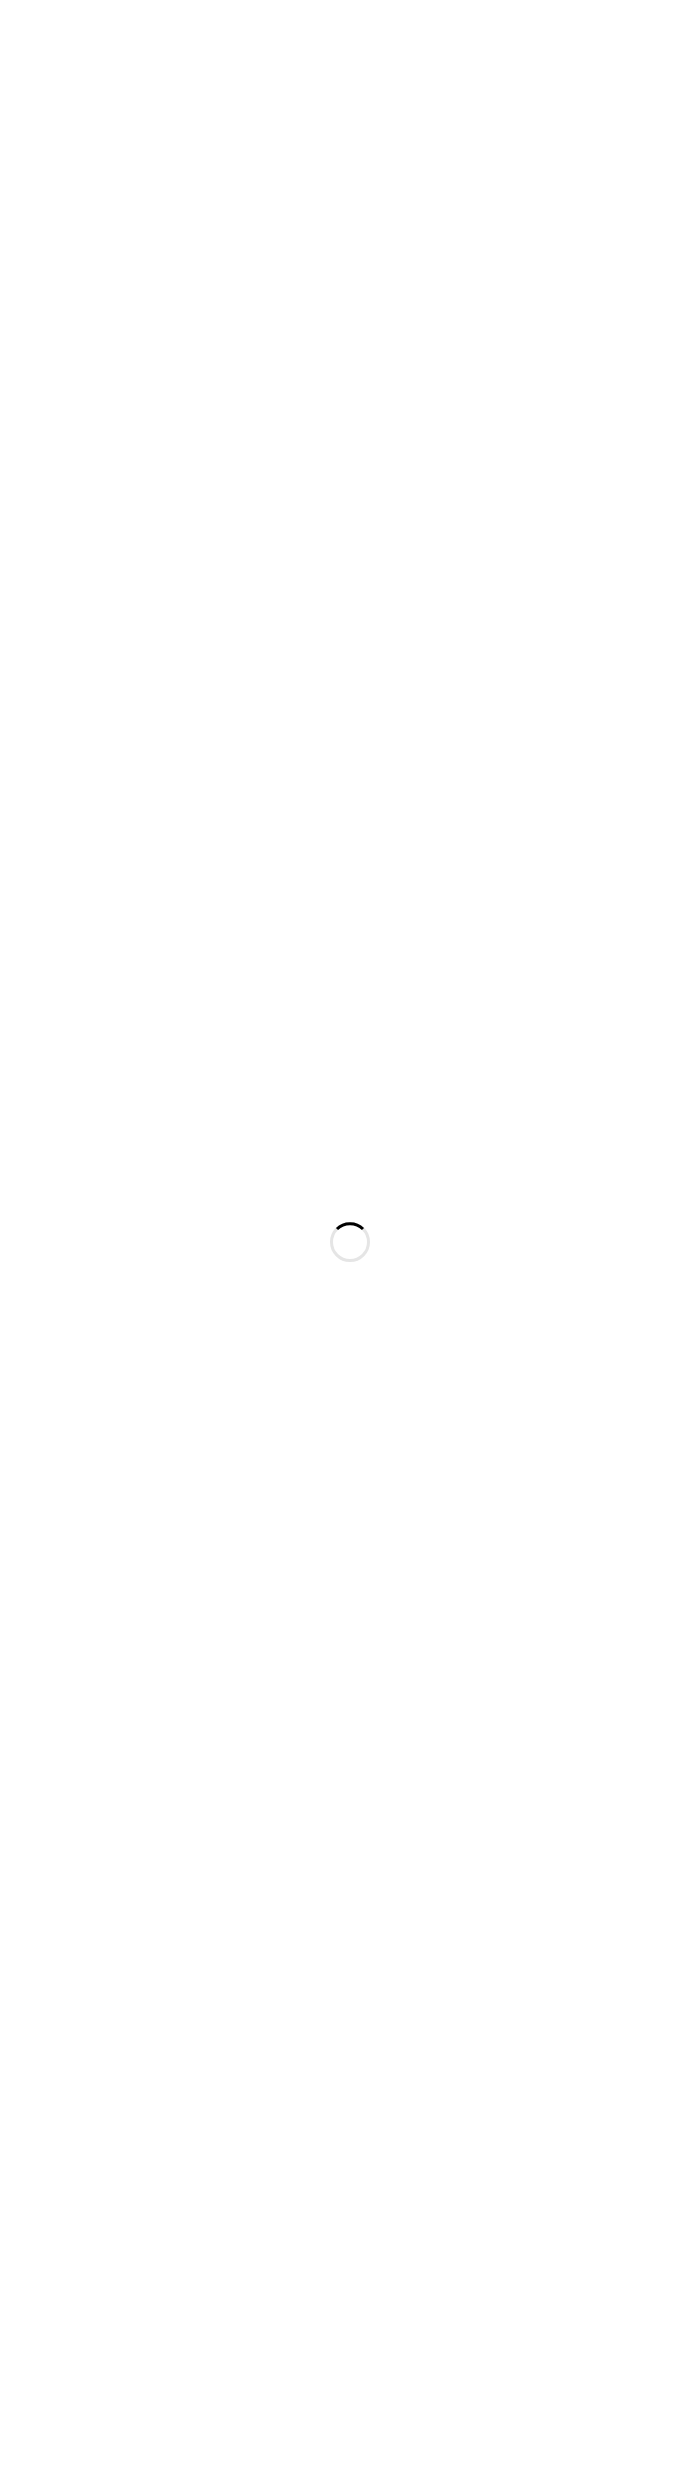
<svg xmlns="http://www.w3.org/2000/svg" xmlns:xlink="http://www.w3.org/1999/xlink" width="700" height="2483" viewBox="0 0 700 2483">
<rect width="100%" height="100%" fill="#ffffff"/>
<circle fill="none" stroke="#e5e5e5" stroke-width="3" cx="350" cy="1242" r="18.5"/>
<path fill="none" stroke="#000000" stroke-width="3" d="M337 1229C344 1222 356 1222 363 1229"/>
</svg>
